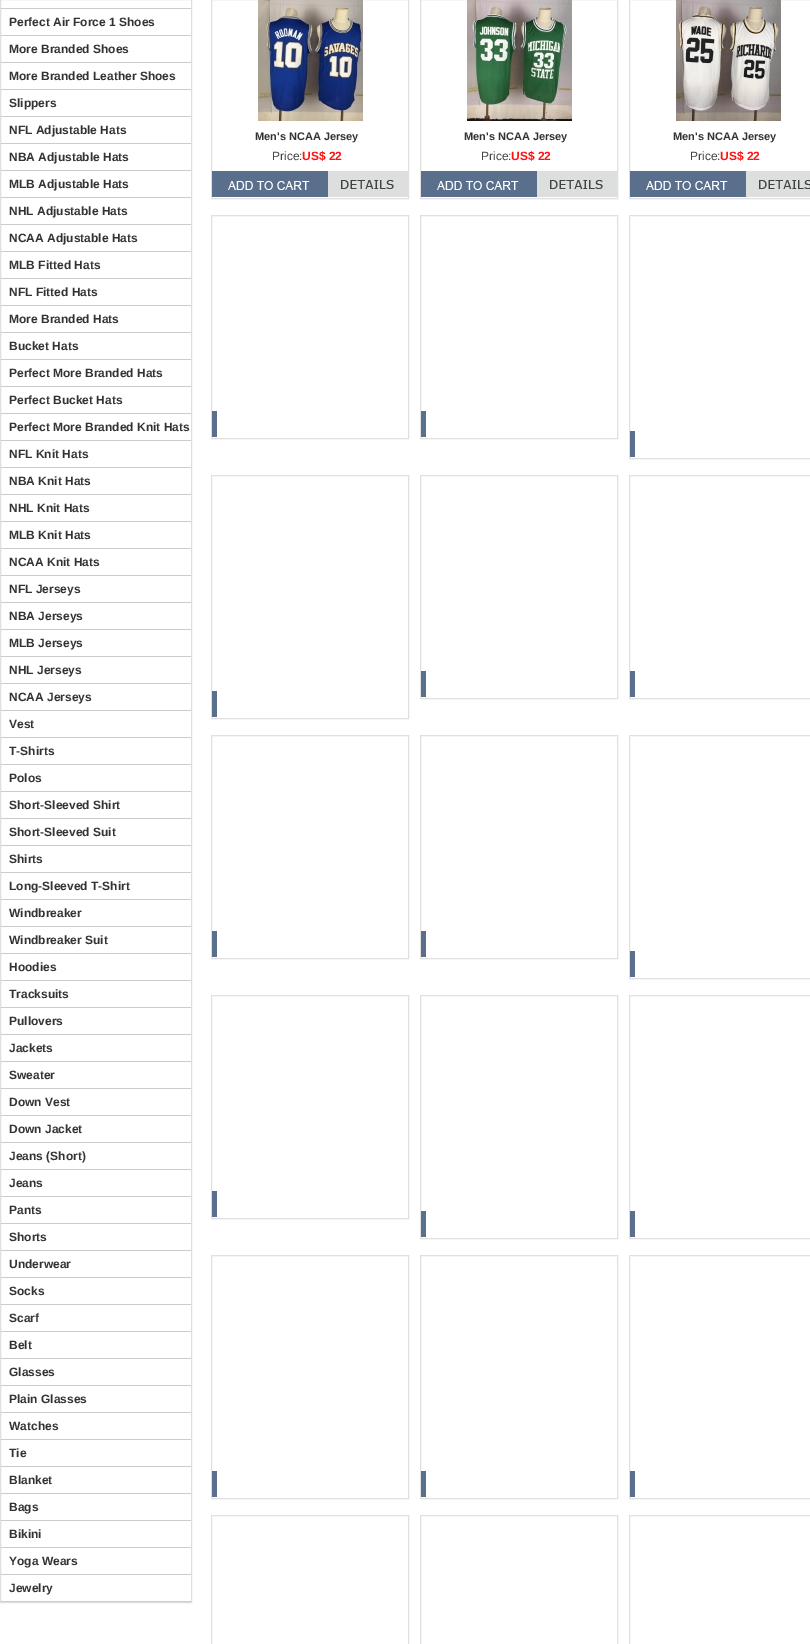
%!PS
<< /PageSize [810 1644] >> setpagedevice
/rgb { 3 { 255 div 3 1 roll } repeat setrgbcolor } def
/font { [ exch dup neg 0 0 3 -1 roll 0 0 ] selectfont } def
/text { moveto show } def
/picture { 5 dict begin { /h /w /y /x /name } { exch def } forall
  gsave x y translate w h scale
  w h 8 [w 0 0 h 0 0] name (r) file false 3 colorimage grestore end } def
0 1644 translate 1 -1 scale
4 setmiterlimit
255 255 255 rgb
0 0 810 1644 rectfill
224 223 223 rgb
0.5 -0.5 191 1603 rectstroke
204 204 204 rgb
1 8 190 1 rectfill
1 35 190 1 rectfill
1 62 190 1 rectfill
1 89 190 1 rectfill
1 116 190 1 rectfill
1 143 190 1 rectfill
1 170 190 1 rectfill
1 197 190 1 rectfill
1 224 190 1 rectfill
1 251 190 1 rectfill
1 278 190 1 rectfill
1 305 190 1 rectfill
1 332 190 1 rectfill
1 359 190 1 rectfill
1 386 190 1 rectfill
1 413 190 1 rectfill
1 440 190 1 rectfill
1 467 190 1 rectfill
1 494 190 1 rectfill
1 521 190 1 rectfill
1 548 190 1 rectfill
1 575 190 1 rectfill
1 602 190 1 rectfill
1 629 190 1 rectfill
1 656 190 1 rectfill
1 683 190 1 rectfill
1 710 190 1 rectfill
1 737 190 1 rectfill
1 764 190 1 rectfill
1 791 190 1 rectfill
1 818 190 1 rectfill
1 845 190 1 rectfill
1 872 190 1 rectfill
1 899 190 1 rectfill
1 926 190 1 rectfill
1 953 190 1 rectfill
1 980 190 1 rectfill
1 1007 190 1 rectfill
1 1034 190 1 rectfill
1 1061 190 1 rectfill
1 1088 190 1 rectfill
1 1115 190 1 rectfill
1 1142 190 1 rectfill
1 1169 190 1 rectfill
1 1196 190 1 rectfill
1 1223 190 1 rectfill
1 1250 190 1 rectfill
1 1277 190 1 rectfill
1 1304 190 1 rectfill
1 1331 190 1 rectfill
1 1358 190 1 rectfill
1 1385 190 1 rectfill
1 1412 190 1 rectfill
1 1439 190 1 rectfill
1 1466 190 1 rectfill
1 1493 190 1 rectfill
1 1520 190 1 rectfill
1 1547 190 1 rectfill
1 1574 190 1 rectfill
1 1601 190 1 rectfill
227 223 223 rgb
211.5 -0.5 197 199 rectstroke
(img_01.rgb) 258 0 105 121 picture
(img_02.rgb) 212 171 116 26 picture
(img_03.rgb) 328 171 80 26 picture
420.5 -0.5 197 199 rectstroke
(img_04.rgb) 467 0 105 121 picture
(img_02.rgb) 421 171 116 26 picture
(img_03.rgb) 537 171 80 26 picture
629.5 -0.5 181 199 rectstroke
(img_05.rgb) 676 0 105 121 picture
(img_02.rgb) 630 171 116 26 picture
(img_06.rgb) 746 171 64 26 picture
211.5 215.5 197 223 rectstroke
(img_07.rgb) 212 411 5 26 picture
420.5 215.5 197 223 rectstroke
(img_07.rgb) 421 411 5 26 picture
629.5 215.5 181 243 rectstroke
(img_07.rgb) 630 431 5 26 picture
211.5 475.5 197 243 rectstroke
(img_07.rgb) 212 691 5 26 picture
420.5 475.5 197 223 rectstroke
(img_07.rgb) 421 671 5 26 picture
629.5 475.5 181 223 rectstroke
(img_07.rgb) 630 671 5 26 picture
211.5 735.5 197 223 rectstroke
(img_07.rgb) 212 931 5 26 picture
420.5 735.5 197 223 rectstroke
(img_07.rgb) 421 931 5 26 picture
629.5 735.5 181 243 rectstroke
(img_07.rgb) 630 951 5 26 picture
211.5 995.5 197 223 rectstroke
(img_07.rgb) 212 1191 5 26 picture
420.5 995.5 197 243 rectstroke
(img_07.rgb) 421 1211 5 26 picture
629.5 995.5 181 243 rectstroke
(img_07.rgb) 630 1211 5 26 picture
211.5 1255.5 197 243 rectstroke
(img_07.rgb) 212 1471 5 26 picture
420.5 1255.5 197 243 rectstroke
(img_07.rgb) 421 1471 5 26 picture
629.5 1255.5 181 243 rectstroke
(img_07.rgb) 630 1471 5 26 picture
211.5 1515.5 197 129 rectstroke
420.5 1515.5 197 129 rectstroke
629.5 1515.5 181 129 rectstroke
/LiberationSans-Bold 12 font
51 51 51 rgb
(Perfect Air Force 1 Shoes) 9 26 text
(More Branded Shoes) 9 53 text
(More Branded Leather Shoes) 9 80 text
(Slippers) 9 107 text
(NFL Adjustable Hats) 9 134 text
(NBA Adjustable Hats) 9 161 text
(MLB Adjustable Hats) 9 188 text
(NHL Adjustable Hats) 9 215 text
(NCAA Adjustable Hats) 9 242 text
(MLB Fitted Hats) 9 269 text
(NFL Fitted Hats) 9 296 text
(More Branded Hats) 9 323 text
(Bucket Hats) 9 350 text
(Perfect More Branded Hats) 9 377 text
(Perfect Bucket Hats) 9 404 text
(Perfect More Branded Knit Hats) 9 431 text
(NFL Knit Hats) 9 458 text
(NBA Knit Hats) 9 485 text
(NHL Knit Hats) 9 512 text
(MLB Knit Hats) 9 539 text
(NCAA Knit Hats) 9 566 text
(NFL Jerseys) 9 593 text
(NBA Jerseys) 9 620 text
(MLB Jerseys) 9 647 text
(NHL Jerseys) 9 674 text
(NCAA Jerseys) 9 701 text
(Vest) 9 728 text
(T-Shirts) 9 755 text
(Polos) 9 782 text
(Short-Sleeved Shirt) 9 809 text
(Short-Sleeved Suit) 9 836 text
(Shirts) 9 863 text
(Long-Sleeved T-Shirt) 9 890 text
(Windbreaker) 9 917 text
(Windbreaker Suit) 9 944 text
(Hoodies) 9 971 text
(Tracksuits) 9 998 text
(Pullovers) 9 1025 text
(Jackets) 9 1052 text
(Sweater) 9 1079 text
(Down Vest) 9 1106 text
(Down Jacket) 9 1133 text
(Jeans \(Short\)) 9 1160 text
(Jeans) 9 1187 text
(Pants) 9 1214 text
(Shorts) 9 1241 text
(Underwear) 9 1268 text
(Socks) 9 1295 text
(Scarf) 9 1322 text
(Belt) 9 1349 text
(Glasses) 9 1376 text
(Plain Glasses) 9 1403 text
(Watches) 9 1430 text
(Tie) 9 1457 text
(Blanket) 9 1484 text
(Bags) 9 1511 text
(Bikini) 9 1538 text
(Yoga Wears) 9 1565 text
(Jewelry) 9 1592 text
/LiberationSans-Bold 11 font
(Men's NCAA Jersey) 255 140 text
/LiberationSans-Regular 12 font
67 67 67 rgb
(Price:) 272 160 text
/LiberationSans-Bold 12 font
255 17 17 rgb
(US$ 22) 302 160 text
/LiberationSans-Bold 11 font
51 51 51 rgb
(Men's NCAA Jersey) 464 140 text
/LiberationSans-Regular 12 font
67 67 67 rgb
(Price:) 481 160 text
/LiberationSans-Bold 12 font
255 17 17 rgb
(US$ 22) 511 160 text
/LiberationSans-Bold 11 font
51 51 51 rgb
(Men's NCAA Jersey) 673 140 text
/LiberationSans-Regular 12 font
67 67 67 rgb
(Price:) 690 160 text
/LiberationSans-Bold 12 font
255 17 17 rgb
(US$ 22) 720 160 text
showpage
